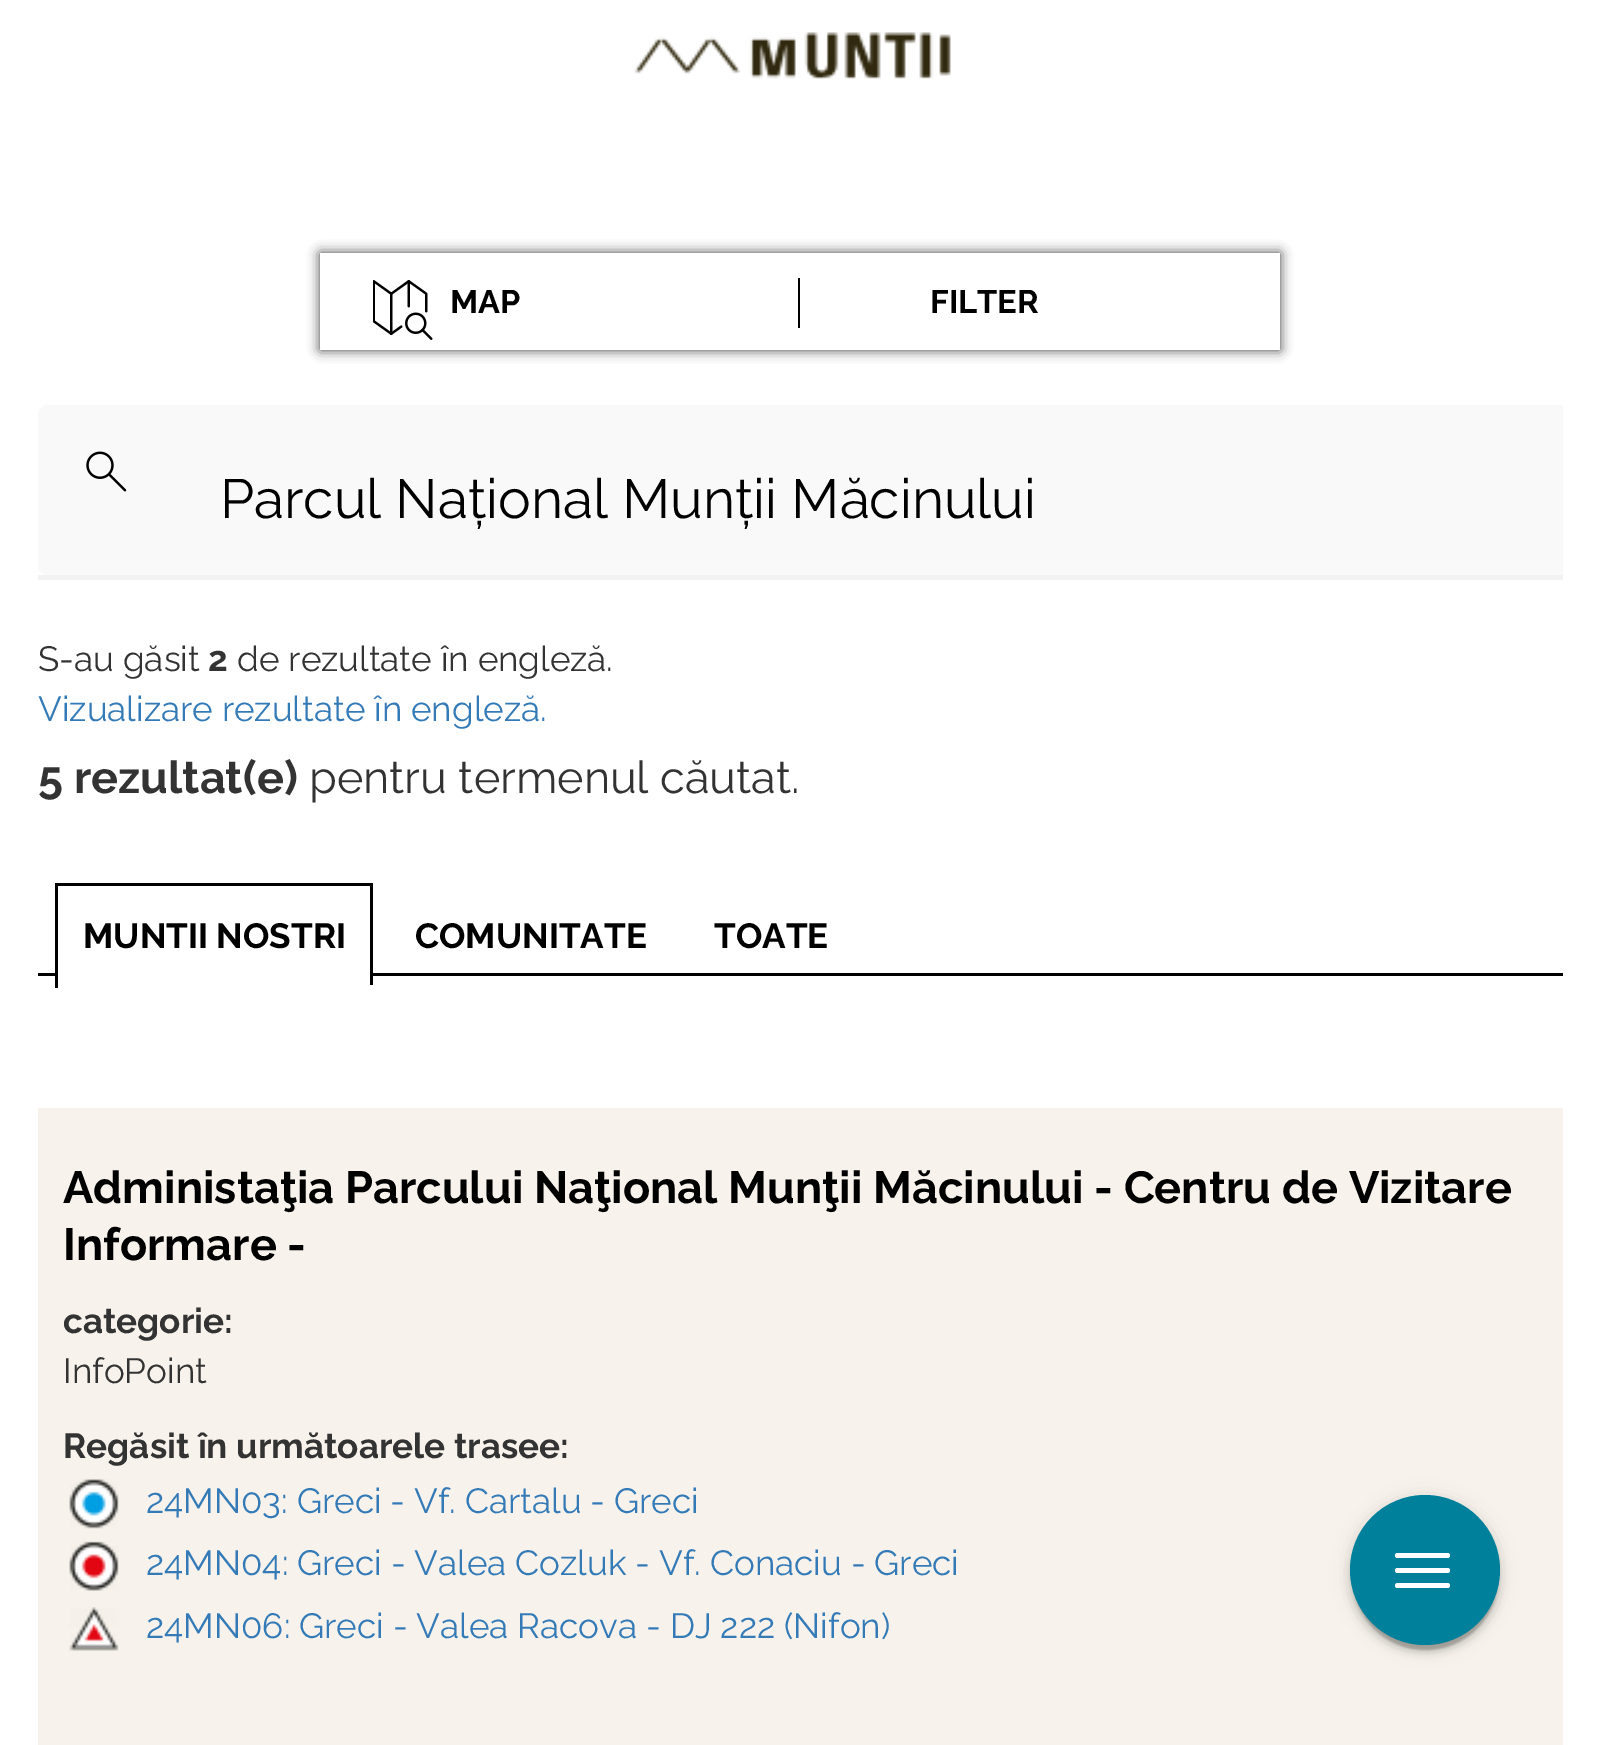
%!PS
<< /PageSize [1598 1745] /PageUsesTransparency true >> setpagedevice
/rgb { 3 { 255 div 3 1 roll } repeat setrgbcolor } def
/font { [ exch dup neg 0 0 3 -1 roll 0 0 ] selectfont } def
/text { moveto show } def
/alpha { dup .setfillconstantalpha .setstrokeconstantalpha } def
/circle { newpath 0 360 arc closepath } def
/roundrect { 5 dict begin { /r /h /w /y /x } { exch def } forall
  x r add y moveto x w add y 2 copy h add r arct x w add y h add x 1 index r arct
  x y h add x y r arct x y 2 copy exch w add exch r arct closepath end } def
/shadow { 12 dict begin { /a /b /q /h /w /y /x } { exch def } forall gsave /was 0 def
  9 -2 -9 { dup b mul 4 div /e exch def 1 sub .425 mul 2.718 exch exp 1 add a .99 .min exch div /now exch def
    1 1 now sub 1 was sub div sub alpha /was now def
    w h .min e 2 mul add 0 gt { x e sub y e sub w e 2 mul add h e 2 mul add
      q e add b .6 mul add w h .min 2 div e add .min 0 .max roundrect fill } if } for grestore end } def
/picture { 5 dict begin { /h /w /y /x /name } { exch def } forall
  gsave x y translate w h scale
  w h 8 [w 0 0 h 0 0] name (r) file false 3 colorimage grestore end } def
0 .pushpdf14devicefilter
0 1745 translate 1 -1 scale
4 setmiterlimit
255 255 255 rgb
0 0 1598 1745 rectfill
(img_01.rgb) 634 32 317 48 picture
gsave
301 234 moveto 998 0 rlineto 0 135 rlineto -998 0 rlineto closepath 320 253 moveto 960 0 rlineto 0 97 rlineto -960 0 rlineto closepath eoclip newpath
0 0 0 rgb
320 253 960 97 0 6 0.75 shadow
grestore
(img_02.rgb) 373 280 60 60 picture
0 0 0 rgb
798 278 2 50 rectfill
242 242 242 rgb
38 575 1525 5 rectfill
249 249 249 rgb
48 405 moveto 1515 0 rlineto 0 170 rlineto -1515 0 rlineto -5.5 0 -10 -4.5 -10 -10 rcurveto 0 -150 rlineto 0 -5.5 4.5 -10 10 -10 rcurveto closepath fill
(img_03.rgb) 86 451 41 41 picture
0 0 0 rgb
38 973 1525 3 rectfill
255 255 255 rgb
58 973 312 3 rectfill
0 0 0 rgb
55 883 318 3 rectfill
370 883 3 105 rectfill
255 255 255 rgb
370 985 3 3 rectfill
0 0 0 rgb
55 883 3 105 rectfill
247 243 236 rgb
38 1108 1525 637 rectfill
(img_04.rgb) 69 1479 50 50 picture
(img_05.rgb) 69 1541 50 50 picture
(img_06.rgb) 69 1607 50 44 picture
0 0 0 rgb
1353 1505 145 145 72.5 1 0.2 shadow
1350 1498 150 150 75 9 0.12 shadow
1350 1503 150 150 75 4 0.14 shadow
0 128 154 rgb
1425 1570 75 circle fill
255 255 255 rgb
1395 1553 55 5 2.5 roundrect fill
1395 1568 55 5 2.5 roundrect fill
1395 1583 55 5 2.5 roundrect fill
/Raleway-Bold 32.5 font
0 0 0 rgb
(MAP) 450 313 text
(FILTER) 930 313 text
/Raleway-Regular 55 font
(Parcul Național Munții Măcinului) 220 518 text
/Raleway-Regular 35 font
51 51 51 rgb
(S-au găsit) 38 671 text
/Raleway-Bold 35 font
(2) 208 671 text
/Raleway-Regular 35 font
(de rezultate în engleză.) 237 671 text
51 122 183 rgb
(Vizualizare rezultate în engleză.) 38 721 text
/Raleway-Bold 45 font
51 51 51 rgb
(5 rezultat\(e\)) 38 793 text
/Raleway-Regular 45 font
(pentru termenul căutat.) 309 793 text
/Raleway-Bold 35 font
0 0 0 rgb
(MUNTII NOSTRI) 83 948 text
(COMUNITATE) 415 948 text
(TOATE) 714 948 text
/Raleway-Bold 45 font
(Administaţia Parcului Naţional Munţii Măcinului - Centru de Vizitare) 63 1203 text
(Informare -) 63 1260 text
/Raleway-Bold 35 font
51 51 51 rgb
(categorie:) 63 1333 text
/Raleway-Regular 35 font
(InfoPoint) 63 1383 text
/Raleway-Bold 35 font
(Regăsit în următoarele trasee:) 63 1458 text
/Raleway-Regular 35 font
51 122 183 rgb
(24MN03: Greci - Vf. Cartalu - Greci) 146 1513 text
(24MN04: Greci - Valea Cozluk - Vf. Conaciu - Greci) 146 1575 text
(24MN06: Greci - Valea Racova - DJ 222 \(Nifon\)) 146 1638 text
.poppdf14devicefilter showpage
